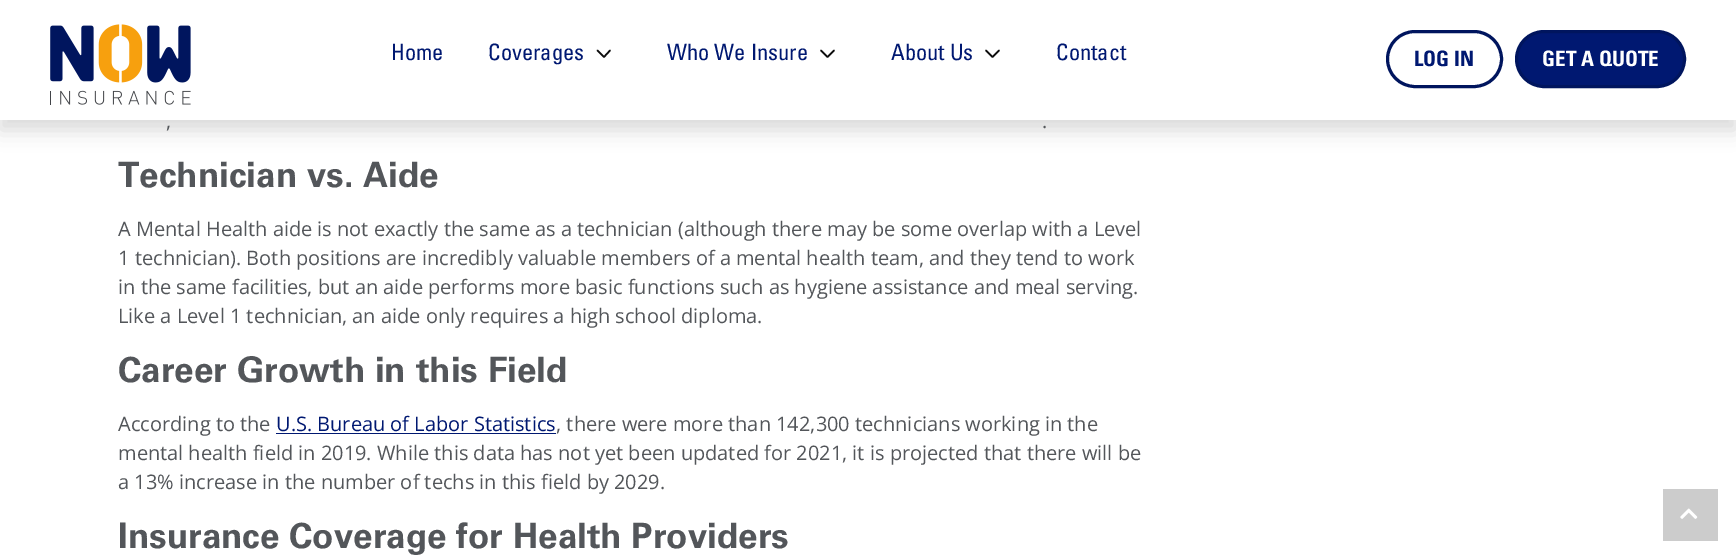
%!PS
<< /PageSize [1736 560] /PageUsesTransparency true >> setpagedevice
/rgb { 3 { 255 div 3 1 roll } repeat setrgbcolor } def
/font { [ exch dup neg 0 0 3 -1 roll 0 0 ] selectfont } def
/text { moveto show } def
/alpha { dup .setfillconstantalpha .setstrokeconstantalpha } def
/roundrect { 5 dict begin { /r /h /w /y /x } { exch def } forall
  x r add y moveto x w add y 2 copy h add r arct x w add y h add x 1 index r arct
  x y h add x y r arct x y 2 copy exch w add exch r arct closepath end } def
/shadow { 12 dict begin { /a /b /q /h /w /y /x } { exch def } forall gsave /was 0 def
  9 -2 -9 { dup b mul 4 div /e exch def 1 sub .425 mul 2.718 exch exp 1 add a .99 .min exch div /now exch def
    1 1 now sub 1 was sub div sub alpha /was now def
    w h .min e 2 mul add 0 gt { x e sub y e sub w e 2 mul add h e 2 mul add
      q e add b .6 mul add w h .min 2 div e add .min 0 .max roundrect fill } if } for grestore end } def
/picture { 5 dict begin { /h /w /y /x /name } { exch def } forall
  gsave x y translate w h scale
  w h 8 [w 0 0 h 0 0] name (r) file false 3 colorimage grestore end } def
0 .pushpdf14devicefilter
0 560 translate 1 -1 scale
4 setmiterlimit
255 255 255 rgb
0 0 1736 560 rectfill
0 0 0 rgb
0 10 1736 120 0 10 0.15 shadow
255 255 255 rgb
0 0 1736 120 rectfill
(img_01.rgb) 50 24 141 81 picture
13 13 13 rgb
1.6 setlinewidth
1 setlinecap
1 setlinejoin
597.5 50.5 moveto 6.5 6.5 rlineto 6 -6.5 rlineto stroke
821 50.5 moveto 6.5 6.5 rlineto 6.5 -6.5 rlineto stroke
986 50.5 moveto 6.5 6.5 rlineto 6.5 -6.5 rlineto stroke
0 21 94 rgb
3 setlinewidth
0 setlinecap
0 setlinejoin
1387.5 31.5 114 55 27.5 roundrect stroke
0 24 113 rgb
1516.5 31.5 168 55 27.5 roundrect gsave fill grestore
0 21 94 rgb
stroke
0 24 113 rgb
276 433 280 1 rectfill
204 204 204 rgb
1663 489 55 52 rectfill
(img_02.rgb) 1680 508 18 11 picture
/Univers-Regular 22.5 font
0 24 113 rgb
(Home) 391 60 text
(Coverages) 488 60 text
(Who We Insure) 667 60 text
(About Us) 891 60 text
(Contact) 1056 60 text
/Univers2-Bold 21.25 font
(LOG IN) 1414 66 text
255 255 255 rgb
(GET A QUOTE) 1542 66 text
/OpenSans-Regular 20 font
83 86 90 rgb
(,) 166 128 text
(.) 1042 128 text
/Univers-Bold 35 font
(Technician vs. Aide) 118 187 text
/OpenSans-Regular 20 font
(A Mental Health aide is not exactly the same as a technician \(although there may be some overlap with a Level) 118 236 text
(1 technician\). Both positions are incredibly valuable members of a mental health team, and they tend to work) 118 265 text
(in the same facilities, but an aide performs more basic functions such as hygiene assistance and meal serving.) 118 294 text
(Like a Level 1 technician, an aide only requires a high school diploma.) 118 323 text
/Univers-Bold 35 font
(Career Growth in this Field) 118 382 text
/OpenSans-Regular 20 font
(According to the) 118 431 text
0 24 113 rgb
(U.S. Bureau of Labor Statistics) 276 431 text
83 86 90 rgb
(, there were more than 142,300 technicians working in the) 556 431 text
(mental health field in 2019. While this data has not yet been updated for 2021, it is projected that there will be) 118 460 text
(a 13% increase in the number of techs in this field by 2029.) 118 489 text
/Univers-Bold 35 font
(Insurance Coverage for Health Providers) 118 548 text
.poppdf14devicefilter showpage
